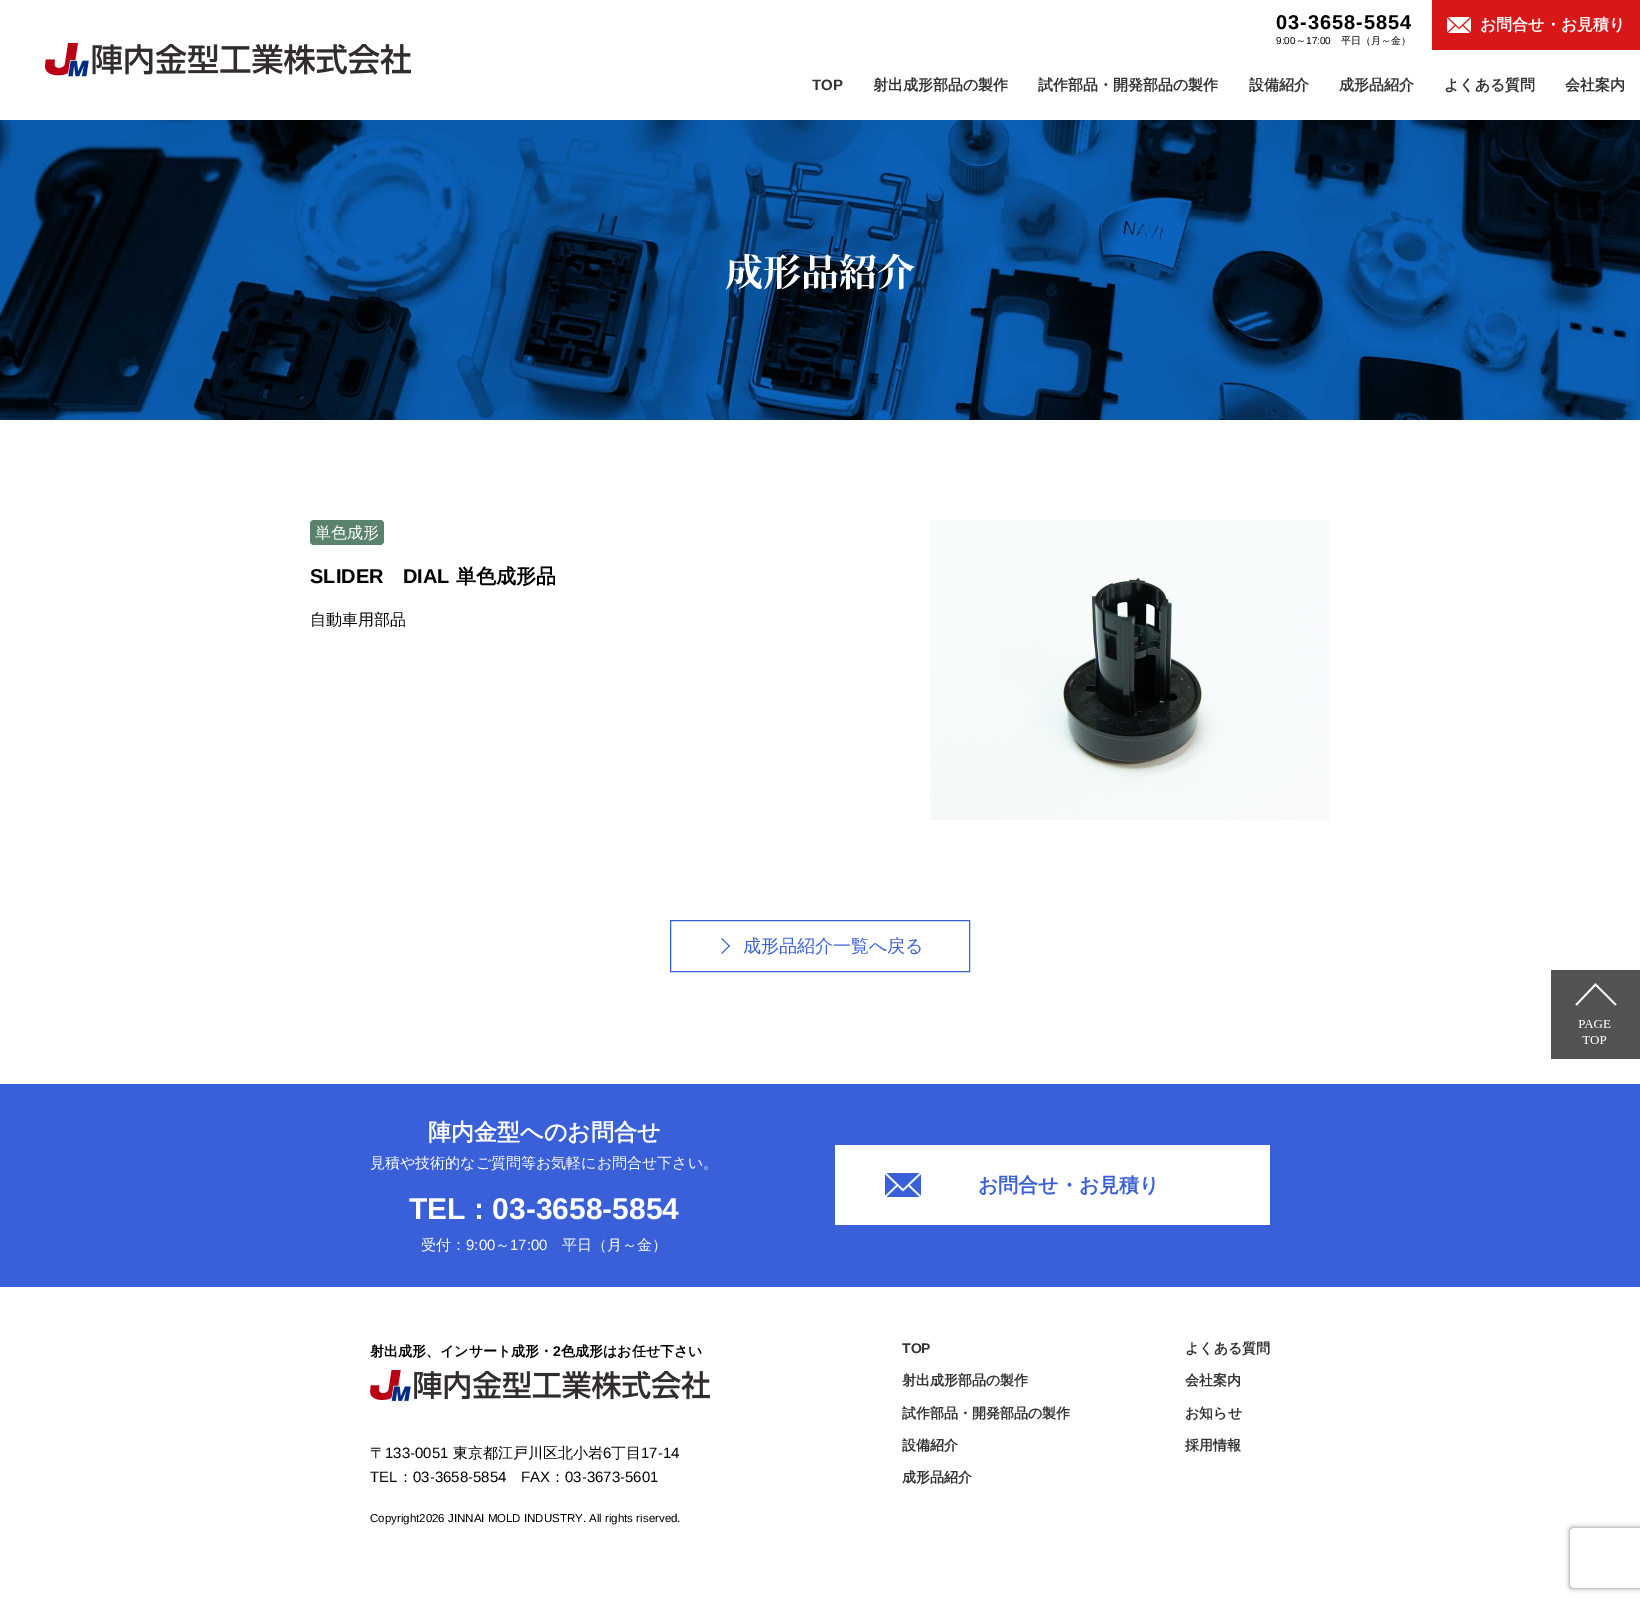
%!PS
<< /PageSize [1640 1602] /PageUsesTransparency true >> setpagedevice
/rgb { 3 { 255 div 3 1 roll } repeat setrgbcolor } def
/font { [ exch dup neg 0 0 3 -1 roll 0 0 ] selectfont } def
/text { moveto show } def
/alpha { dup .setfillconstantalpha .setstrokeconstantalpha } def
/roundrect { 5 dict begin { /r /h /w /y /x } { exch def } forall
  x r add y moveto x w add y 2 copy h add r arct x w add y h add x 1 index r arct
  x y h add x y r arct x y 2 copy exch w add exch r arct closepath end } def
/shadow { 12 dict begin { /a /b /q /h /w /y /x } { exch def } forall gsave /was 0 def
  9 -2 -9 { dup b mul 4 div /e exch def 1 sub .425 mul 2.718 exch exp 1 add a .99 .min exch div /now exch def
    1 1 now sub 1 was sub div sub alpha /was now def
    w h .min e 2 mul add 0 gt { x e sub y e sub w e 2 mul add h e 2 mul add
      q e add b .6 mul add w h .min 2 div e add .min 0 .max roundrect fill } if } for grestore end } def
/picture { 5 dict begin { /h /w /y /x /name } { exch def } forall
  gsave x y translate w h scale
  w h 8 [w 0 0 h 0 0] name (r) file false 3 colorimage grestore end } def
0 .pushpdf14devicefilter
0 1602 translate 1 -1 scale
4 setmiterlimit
255 255 255 rgb
0 0 1640 1602 rectfill
(img_01.rgb) 45 43 366 34 picture
215 23 24 rgb
1432 0 208 50 rectfill
(img_02.rgb) 1447 17 24 16 picture
(img_03.rgb) 0 120 1640 300 picture
89 131 108 rgb
310 520 74 25 4 roundrect fill
(img_04.rgb) 930 520 400 300 picture
57 96 217 rgb
670.5 920.5 299 51 rectstroke
722 938 moveto 8 8 rlineto -1 0.5 rlineto -7.5 -7.5 rlineto closepath fill
729 945.5 moveto 1 0.5 rlineto -8 8 rlineto -0.5 -1 rlineto closepath fill
0 1084 1640 203 rectfill
(img_05.rgb) 1551 970 89 89 picture
255 255 255 rgb
835 1145 435 80 rectfill
(img_06.rgb) 885 1173 36 24 picture
(img_07.rgb) 370 1370 340 31 picture
gsave
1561 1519 moveto 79 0 rlineto 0 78 rlineto -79 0 rlineto closepath 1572 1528 moveto 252 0 rlineto 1 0 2 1 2 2 rcurveto 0 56 rlineto 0 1 -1 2 -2 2 rcurveto -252 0 rlineto -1 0 -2 -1 -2 -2 rcurveto 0 -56 rlineto 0 -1 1 -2 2 -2 rcurveto closepath eoclip newpath
128 128 128 rgb
1570 1528 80 60 2 2.5 1 shadow
grestore
/LiberationSans-Bold 20 font
0 0 0 rgb
1276 29 moveto 1 0 (03-3658-5854) ashow
/LiberationSans-Regular 10 font
(9:00) 1276 44 text
/WenQuanYiZenHei-Medium 10 font
(～) 1296 44 text
/LiberationSans-Regular 10 font
(17:00) 1306 44 text
/WenQuanYiZenHei-Medium 10 font
(平日（月～金）) 1341 44 text
/WenQuanYiZenHei-Bold 16 font
255 255 255 rgb
(お問合せ・お見積り) 1480 30 text
/LiberationSans-Bold 15 font
51 51 51 rgb
(TOP) 812 90 text
/WenQuanYiZenHei-Bold 15 font
(射出成形部品の製作) 873 90 text
(試作部品・開発部品の製作) 1038 90 text
(設備紹介) 1249 90 text
(成形品紹介) 1339 90 text
(よくある質問) 1444 90 text
(会社案内) 1565 90 text
/NotoSerifJP-Bold 38 font
255 255 255 rgb
(成形品紹介) 725 286 text
/WenQuanYiZenHei-Medium 16 font
(単色成形) 315 538 text
/LiberationSans-Bold 20 font
0 0 0 rgb
(SLIDER) 310 583 text
(DIAL) 403 583 text
/WenQuanYiZenHei-Bold 20 font
(単色成形品) 456 583 text
/WenQuanYiZenHei-Medium 16 font
(自動車用部品) 310 625 text
/WenQuanYiZenHei-Medium 18 font
57 96 217 rgb
(成形品紹介一覧へ戻る) 743 952 text
/WenQuanYiZenHei-Bold 23 font
255 255 255 rgb
(陣内金型へのお問合せ) 428 1140 text
/WenQuanYiZenHei-Medium 15 font
(見積や技術的なご質問等お気軽にお問合せ下さい。) 370 1168 text
/LiberationSans-Bold 30 font
(TEL : 03-3658-5854) 409 1219 text
/WenQuanYiZenHei-Medium 15 font
(受付：) 421 1250 text
/LiberationSans-Regular 15 font
(9:00) 466 1250 text
/WenQuanYiZenHei-Medium 15 font
(～) 495 1250 text
/LiberationSans-Regular 15 font
(17:00) 510 1250 text
/WenQuanYiZenHei-Medium 15 font
(平日（月～金）) 562 1250 text
/WenQuanYiZenHei-Bold 20 font
57 96 217 rgb
(お問合せ・お見積り) 978 1192 text
/WenQuanYiZenHei-Bold 14 font
0 0 0 rgb
(射出成形、インサート成形・) 370 1356 text
/LiberationSans-Bold 14 font
(2) 553 1356 text
/WenQuanYiZenHei-Bold 14 font
(色成形はお任せ下さい) 561 1356 text
/WenQuanYiZenHei-Medium 15 font
(〒) 370 1458 text
/LiberationSans-Regular 15 font
(133-0051) 385 1458 text
/WenQuanYiZenHei-Medium 15 font
(東京都江戸川区北小岩) 453 1458 text
/LiberationSans-Regular 15 font
(6) 603 1458 text
/WenQuanYiZenHei-Medium 15 font
(丁目) 611 1458 text
/LiberationSans-Regular 15 font
(17-14) 641 1458 text
(TEL) 370 1482 text
/WenQuanYiZenHei-Medium 15 font
(：) 398 1482 text
/LiberationSans-Regular 15 font
(03-3658-5854) 413 1482 text
(FAX) 521 1482 text
/WenQuanYiZenHei-Medium 15 font
(：) 550 1482 text
/LiberationSans-Regular 15 font
(03-3673-5601) 565 1482 text
/LiberationSans-Regular 11.5 font
(Copyright2026 JINNAI MOLD INDUSTRY. All rights riserved.) 370 1522 text
/LiberationSans-Bold 14 font
51 51 51 rgb
(TOP) 902 1353 text
/WenQuanYiZenHei-Bold 14 font
(射出成形部品の製作) 902 1385 text
(試作部品・開発部品の製作) 902 1418 text
(設備紹介) 902 1450 text
(成形品紹介) 902 1482 text
(よくある質問) 1185 1353 text
(会社案内) 1185 1385 text
(お知らせ) 1185 1418 text
(採用情報) 1185 1450 text
.poppdf14devicefilter showpage
